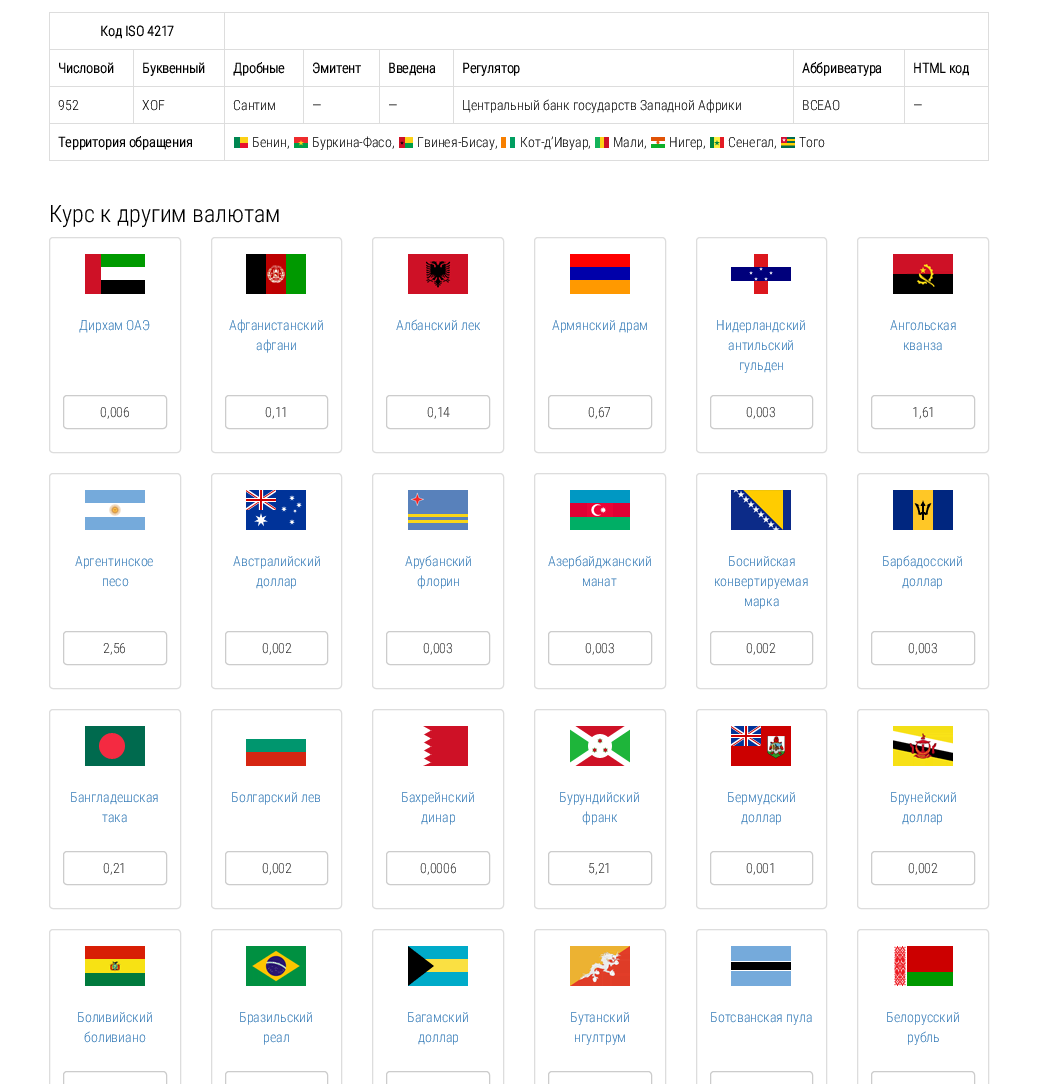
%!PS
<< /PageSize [1038 1084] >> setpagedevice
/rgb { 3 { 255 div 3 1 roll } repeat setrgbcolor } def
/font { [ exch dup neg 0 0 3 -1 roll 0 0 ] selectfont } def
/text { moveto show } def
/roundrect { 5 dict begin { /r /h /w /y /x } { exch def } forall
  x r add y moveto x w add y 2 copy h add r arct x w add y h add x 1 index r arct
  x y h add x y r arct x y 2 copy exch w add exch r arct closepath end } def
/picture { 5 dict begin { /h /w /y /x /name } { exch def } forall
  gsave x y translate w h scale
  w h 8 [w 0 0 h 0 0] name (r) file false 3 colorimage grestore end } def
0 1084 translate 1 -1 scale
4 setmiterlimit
255 255 255 rgb
0 0 1038 1084 rectfill
221 221 221 rgb
49 12 940 1 rectfill
988 12 1 149 rectfill
49 160 940 1 rectfill
49 12 1 149 rectfill
904 49 85 1 rectfill
904 86 85 1 rectfill
224 123 765 1 rectfill
904 86 1 38 rectfill
793 86 112 1 rectfill
904 49 1 38 rectfill
793 49 112 1 rectfill
793 86 1 38 rectfill
453 86 341 1 rectfill
793 49 1 38 rectfill
453 49 341 1 rectfill
453 86 1 38 rectfill
379 86 75 1 rectfill
453 49 1 38 rectfill
379 49 75 1 rectfill
379 86 1 38 rectfill
303 86 77 1 rectfill
379 49 1 38 rectfill
303 49 77 1 rectfill
303 86 1 38 rectfill
224 86 80 1 rectfill
303 49 1 38 rectfill
224 49 80 1 rectfill
224 123 1 38 rectfill
49 123 176 1 rectfill
224 86 1 38 rectfill
133 86 92 1 rectfill
224 49 1 38 rectfill
133 49 92 1 rectfill
224 12 1 38 rectfill
133 86 1 38 rectfill
49 86 85 1 rectfill
133 49 1 38 rectfill
49 49 85 1 rectfill
(img_01.rgb) 234 137 14 11 picture
(img_02.rgb) 294 137 14 11 picture
(img_03.rgb) 399 137 14 11 picture
(img_04.rgb) 501 137 14 11 picture
(img_05.rgb) 595 137 14 11 picture
(img_06.rgb) 651 137 14 11 picture
(img_07.rgb) 710 137 14 11 picture
(img_08.rgb) 781 137 14 11 picture
49.5 237.5 131 215 3.5 roundrect stroke
(img_09.rgb) 85 254 60 40 picture
204 204 204 rgb
63.5 395.5 103 33 3.5 roundrect stroke
221 221 221 rgb
211.5 237.5 130 215 3.5 roundrect stroke
(img_10.rgb) 246 254 60 40 picture
204 204 204 rgb
225.5 395.5 102 33 3.5 roundrect stroke
221 221 221 rgb
372.5 237.5 131 215 3.5 roundrect stroke
(img_11.rgb) 408 254 60 40 picture
204 204 204 rgb
386.5 395.5 103 33 3.5 roundrect stroke
221 221 221 rgb
534.5 237.5 131 215 3.5 roundrect stroke
(img_12.rgb) 570 254 60 40 picture
204 204 204 rgb
548.5 395.5 103 33 3.5 roundrect stroke
221 221 221 rgb
696.5 237.5 130 215 3.5 roundrect stroke
(img_13.rgb) 731 254 60 40 picture
204 204 204 rgb
710.5 395.5 102 33 3.5 roundrect stroke
221 221 221 rgb
857.5 237.5 131 215 3.5 roundrect stroke
(img_14.rgb) 893 254 60 40 picture
204 204 204 rgb
871.5 395.5 103 33 3.5 roundrect stroke
221 221 221 rgb
49.5 473.5 131 215 3.5 roundrect stroke
(img_15.rgb) 85 490 60 40 picture
204 204 204 rgb
63.5 631.5 103 33 3.5 roundrect stroke
221 221 221 rgb
211.5 473.5 130 215 3.5 roundrect stroke
(img_16.rgb) 246 490 60 40 picture
204 204 204 rgb
225.5 631.5 102 33 3.5 roundrect stroke
221 221 221 rgb
372.5 473.5 131 215 3.5 roundrect stroke
(img_17.rgb) 408 490 60 40 picture
204 204 204 rgb
386.5 631.5 103 33 3.5 roundrect stroke
221 221 221 rgb
534.5 473.5 131 215 3.5 roundrect stroke
(img_18.rgb) 570 490 60 40 picture
204 204 204 rgb
548.5 631.5 103 33 3.5 roundrect stroke
221 221 221 rgb
696.5 473.5 130 215 3.5 roundrect stroke
(img_19.rgb) 731 490 60 40 picture
204 204 204 rgb
710.5 631.5 102 33 3.5 roundrect stroke
221 221 221 rgb
857.5 473.5 131 215 3.5 roundrect stroke
(img_20.rgb) 893 490 60 40 picture
204 204 204 rgb
871.5 631.5 103 33 3.5 roundrect stroke
221 221 221 rgb
49.5 709.5 131 199 3.5 roundrect stroke
(img_21.rgb) 85 726 60 40 picture
204 204 204 rgb
63.5 851.5 103 33 3.5 roundrect stroke
221 221 221 rgb
211.5 709.5 130 199 3.5 roundrect stroke
(img_22.rgb) 246 739 60 27 picture
204 204 204 rgb
225.5 851.5 102 33 3.5 roundrect stroke
221 221 221 rgb
372.5 709.5 131 199 3.5 roundrect stroke
(img_23.rgb) 423 726 45 40 picture
204 204 204 rgb
386.5 851.5 103 33 3.5 roundrect stroke
221 221 221 rgb
534.5 709.5 131 199 3.5 roundrect stroke
(img_24.rgb) 570 726 60 40 picture
204 204 204 rgb
548.5 851.5 103 33 3.5 roundrect stroke
221 221 221 rgb
696.5 709.5 130 199 3.5 roundrect stroke
(img_25.rgb) 731 726 60 40 picture
204 204 204 rgb
710.5 851.5 102 33 3.5 roundrect stroke
221 221 221 rgb
857.5 709.5 131 199 3.5 roundrect stroke
(img_26.rgb) 893 726 60 40 picture
204 204 204 rgb
871.5 851.5 103 33 3.5 roundrect stroke
221 221 221 rgb
49.5 929.5 131 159 3.5 roundrect stroke
(img_27.rgb) 85 946 60 40 picture
204 204 204 rgb
63.5 1071.5 103 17 3.5 roundrect stroke
221 221 221 rgb
211.5 929.5 130 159 3.5 roundrect stroke
(img_28.rgb) 246 946 60 40 picture
204 204 204 rgb
225.5 1071.5 102 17 3.5 roundrect stroke
221 221 221 rgb
372.5 929.5 131 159 3.5 roundrect stroke
(img_29.rgb) 408 946 60 40 picture
204 204 204 rgb
386.5 1071.5 103 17 3.5 roundrect stroke
221 221 221 rgb
534.5 929.5 131 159 3.5 roundrect stroke
(img_30.rgb) 570 946 60 40 picture
204 204 204 rgb
548.5 1071.5 103 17 3.5 roundrect stroke
221 221 221 rgb
696.5 929.5 130 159 3.5 roundrect stroke
(img_31.rgb) 731 946 60 40 picture
204 204 204 rgb
710.5 1071.5 102 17 3.5 roundrect stroke
221 221 221 rgb
857.5 929.5 131 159 3.5 roundrect stroke
(img_32.rgb) 894 946 59 40 picture
204 204 204 rgb
871.5 1071.5 103 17 3.5 roundrect stroke
/RobotoCondensed-Bold 14 font
0 0 0 rgb
(Код ISO 4217) 100 36 text
(Числовой) 58 73 text
(Буквенный) 142 73 text
(Дробные) 233 73 text
(Эмитент) 312 73 text
(Введена) 388 73 text
(Регулятор) 462 73 text
(Аббривеатура) 802 73 text
(HTML код) 913 73 text
/RobotoCondensed-Light 14 font
(952) 58 110 text
(XOF) 142 110 text
(Сантим) 233 110 text
(—) 312 110 text
(—) 388 110 text
(Центральный банк государств Западной Африки) 462 110 text
(BCEAO) 802 110 text
(—) 913 110 text
/RobotoCondensed-Bold 14 font
(Территория обращения) 58 147 text
/RobotoCondensed-Light 14 font
(Бенин,) 252 147 text
(Буркина-Фасо,) 312 147 text
(Гвинея-Бисау,) 417 147 text
(Кот-д’Ивуар,) 520 147 text
(Мали,) 613 147 text
(Нигер,) 669 147 text
(Сенегал,) 728 147 text
(Того) 799 147 text
/RobotoCondensed-Light 24 font
(Курс к другим валютам) 49 222 text
/RobotoCondensed-Light 14 font
51 122 183 rgb
(Дирхам ОАЭ) 79 330 text
51 51 51 rgb
(0,006) 100 417 text
51 122 183 rgb
(Афганистанский) 229 330 text
(афгани) 256 350 text
51 51 51 rgb
(0,11) 265 417 text
51 122 183 rgb
(Албанский лек) 396 330 text
51 51 51 rgb
(0,14) 427 417 text
51 122 183 rgb
(Армянский драм) 552 330 text
51 51 51 rgb
(0,67) 588 417 text
51 122 183 rgb
(Нидерландский) 716 330 text
(антильский) 728 350 text
(гульден) 739 370 text
51 51 51 rgb
(0,003) 746 417 text
51 122 183 rgb
(Ангольская) 890 330 text
(кванза) 903 350 text
51 51 51 rgb
(1,61) 912 417 text
51 122 183 rgb
(Аргентинское) 75 566 text
(песо) 102 586 text
51 51 51 rgb
(2,56) 103 653 text
51 122 183 rgb
(Австралийский) 233 566 text
(доллар) 256 586 text
51 51 51 rgb
(0,002) 262 653 text
51 122 183 rgb
(Арубанский) 405 566 text
(флорин) 417 586 text
51 51 51 rgb
(0,003) 423 653 text
51 122 183 rgb
(Азербайджанский) 548 566 text
(манат) 582 586 text
51 51 51 rgb
(0,003) 585 653 text
51 122 183 rgb
(Боснийская) 728 566 text
(конвертируемая) 714 586 text
(марка) 744 606 text
51 51 51 rgb
(0,002) 746 653 text
51 122 183 rgb
(Барбадосский) 882 566 text
(доллар) 902 586 text
51 51 51 rgb
(0,003) 908 653 text
51 122 183 rgb
(Бангладешская) 70 802 text
(така) 102 822 text
51 51 51 rgb
(0,21) 103 873 text
51 122 183 rgb
(Болгарский лев) 231 802 text
51 51 51 rgb
(0,002) 262 873 text
51 122 183 rgb
(Бахрейнский) 401 802 text
(динар) 421 822 text
51 51 51 rgb
(0,0006) 420 873 text
51 122 183 rgb
(Бурундийский) 559 802 text
(франк) 582 822 text
51 51 51 rgb
(5,21) 588 873 text
51 122 183 rgb
(Бермудский) 727 802 text
(доллар) 741 822 text
51 51 51 rgb
(0,001) 746 873 text
51 122 183 rgb
(Брунейский) 890 802 text
(доллар) 902 822 text
51 51 51 rgb
(0,002) 908 873 text
51 122 183 rgb
(Боливийский) 77 1022 text
(боливиано) 84 1042 text
(Бразильский) 239 1022 text
(реал) 263 1042 text
(Багамский) 407 1022 text
(доллар) 418 1042 text
(Бутанский) 570 1022 text
(нгултрум) 574 1042 text
(Ботсванская пула) 710 1022 text
(Белорусский) 886 1022 text
(рубль) 907 1042 text
showpage
